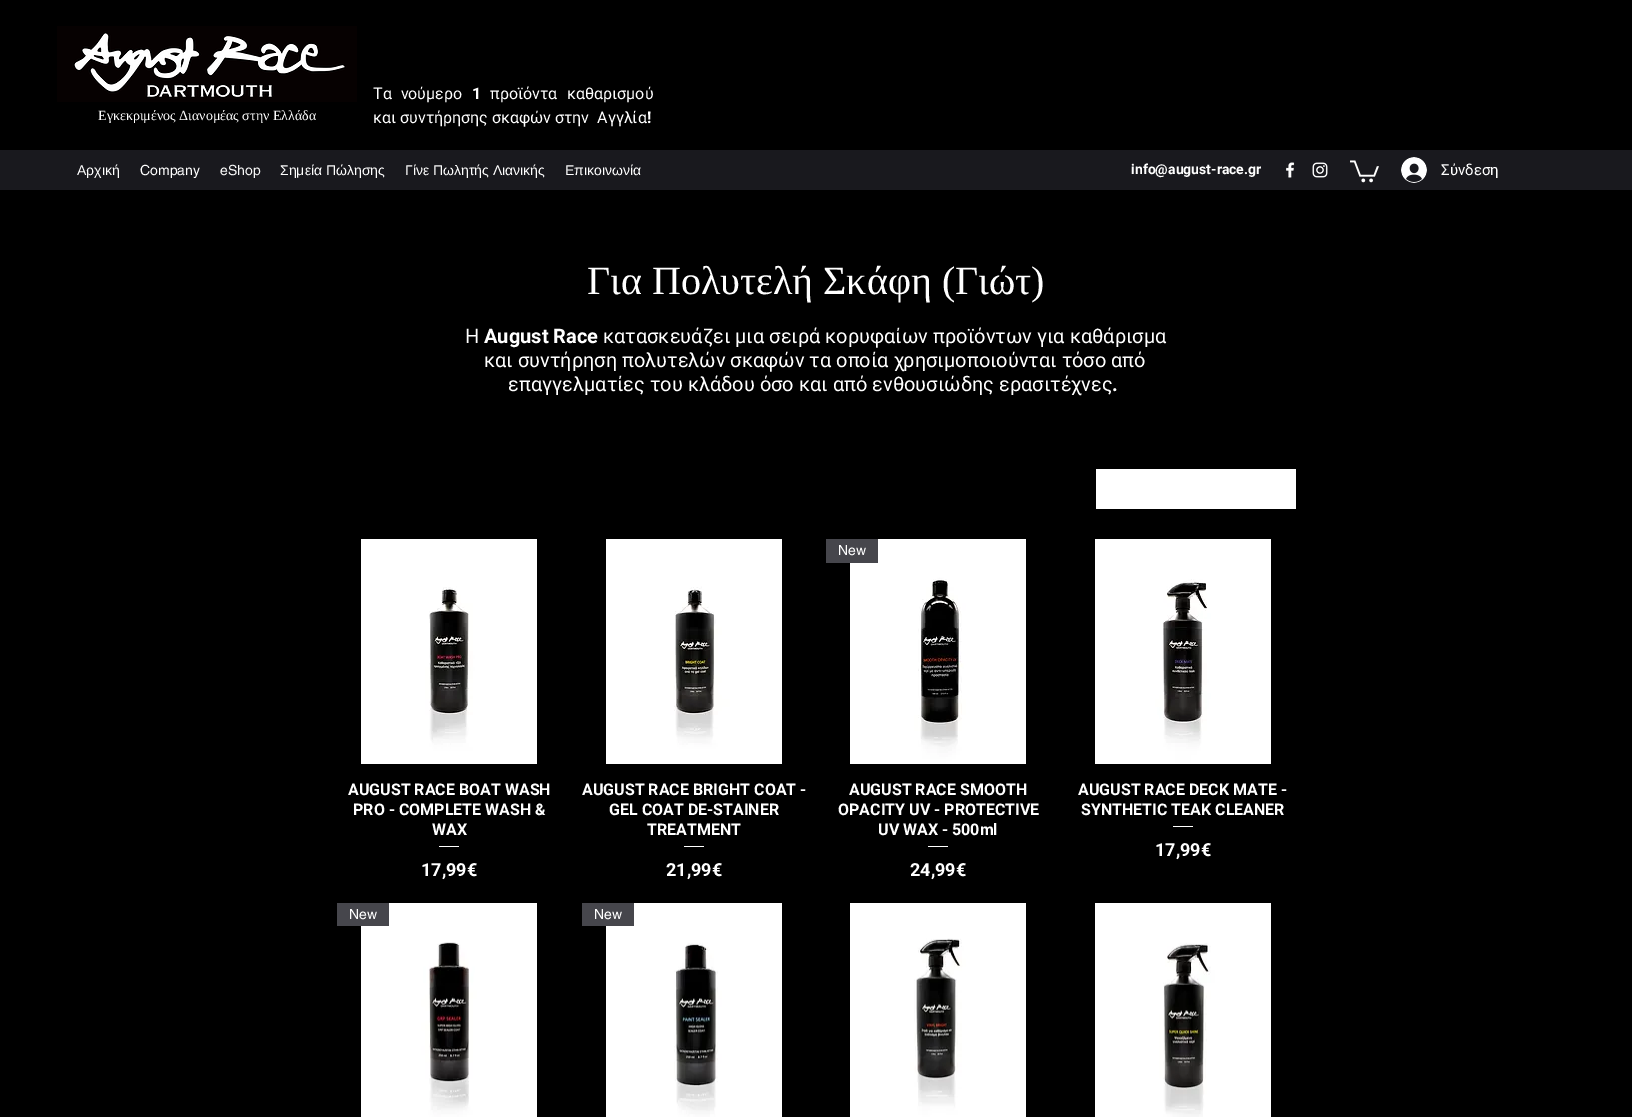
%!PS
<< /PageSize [1632 1117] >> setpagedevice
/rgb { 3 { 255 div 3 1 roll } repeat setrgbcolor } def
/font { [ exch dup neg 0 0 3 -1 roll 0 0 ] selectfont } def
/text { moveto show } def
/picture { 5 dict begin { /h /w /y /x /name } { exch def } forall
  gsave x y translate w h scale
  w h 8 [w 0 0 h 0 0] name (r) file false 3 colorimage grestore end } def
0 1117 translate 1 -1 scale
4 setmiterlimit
0 0 0 rgb
0 0 1632 1117 rectfill
(img_01.rgb) 57 26 300 76 picture
25 25 30 rgb
0 150 1632 40 rectfill
(img_02.rgb) 1286 162 9 16 picture
(img_03.rgb) 1312 162 16 16 picture
(img_04.rgb) 1350 160 29 23 picture
(img_05.rgb) 1401 157 26 26 picture
255 255 255 rgb
1096 469 200 40 rectfill
(img_06.rgb) 361 539 176 225 picture
439 846 20 1 rectfill
(img_07.rgb) 606 539 176 225 picture
684 846 20 1 rectfill
(img_08.rgb) 850 539 176 225 picture
70 70 76 rgb
826 539 52 24 rectfill
255 255 255 rgb
928 846 20 1 rectfill
(img_09.rgb) 1095 539 176 225 picture
1173 826 20 1 rectfill
(img_10.rgb) 361 903 176 214 picture
70 70 76 rgb
337 903 52 23 rectfill
(img_11.rgb) 606 903 176 214 picture
582 903 52 23 rectfill
(img_12.rgb) 850 903 176 214 picture
(img_13.rgb) 1095 903 176 214 picture
/LiberationSerif-Regular 14 font
255 255 255 rgb
(Εγκεκριμένος Διανομέας στην Ελλάδα) 98 120 text
/Roboto-Regular 16 font
373 99 moveto 5 0 32 (Τα νούμερο) widthshow
/Roboto-Bold 16 font
(1) 472 99 text
/Roboto-Regular 16 font
(προϊόντα) 490 99 text
(καθαρισμού) 567 99 text
(και συντήρησης σκαφών στην  Αγγλία) 373 123 text
/Roboto-Bold 16 font
(!) 647 123 text
/LiberationSans-Regular 14 font
(Αρχική) 77 175 text
/helvetica-Regular 14 font
(Company) 140 175 text
247 247 247 rgb
(eShop) 220 175 text
/LiberationSans-Regular 14 font
255 255 255 rgb
(Σημεία Πώλησης) 280 175 text
(Γίνε Πωλητής Λιανικής) 405 175 text
(Επικοινωνία) 565 175 text
/Roboto-Bold 14 font
(info@august-race.gr) 1131 174 text
/Roboto-Regular 15 font
(Σύνδεση) 1441 175 text
/LiberationSerif-Regular 40 font
(Για Πολυτελή Σκάφη \(Γιώτ\)) 587 294 text
/Roboto-Regular 20 font
(Η) 465 343 text
/Roboto-Bold 20 font
(August Race) 484 343 text
/Roboto-Regular 20 font
(κατασκευάζει μια σειρά κορυφαίων προϊόντων για καθάρισμα) 603 343 text
(και συντήρηση πολυτελών σκαφών τα οποία χρησιμοποιούνται τόσο από) 484 367 text
(επαγγελματίες του κλάδου όσο και από ενθουσιώδης ερασιτέχνες) 508 391 text
/Roboto-Bold 20 font
(.) 1112 391 text
/Roboto-Bold 16 font
(AUGUST RACE BOAT WASH) 348 795 text
(PRO - COMPLETE WASH &) 353 815 text
(WAX) 432 835 text
/Roboto-Bold 18 font
(17,99€) 421 876 text
/Roboto-Bold 16 font
(AUGUST RACE BRIGHT COAT -) 582 795 text
(GEL COAT DE-STAINER) 609 815 text
(TREATMENT) 647 835 text
/Roboto-Bold 18 font
(21,99€) 666 876 text
/helvetica-Regular 14 font
(New) 838 555 text
/Roboto-Bold 16 font
(AUGUST RACE SMOOTH) 849 795 text
(OPACITY UV - PROTECTIVE) 838 815 text
(UV WAX - 500ml) 878 835 text
/Roboto-Bold 18 font
(24,99€) 910 876 text
/Roboto-Bold 16 font
(AUGUST RACE DECK MATE -) 1078 795 text
(SYNTHETIC TEAK CLEANER) 1081 815 text
/Roboto-Bold 18 font
(17,99€) 1155 856 text
/helvetica-Regular 14 font
(New) 349 919 text
(New) 594 919 text
showpage
